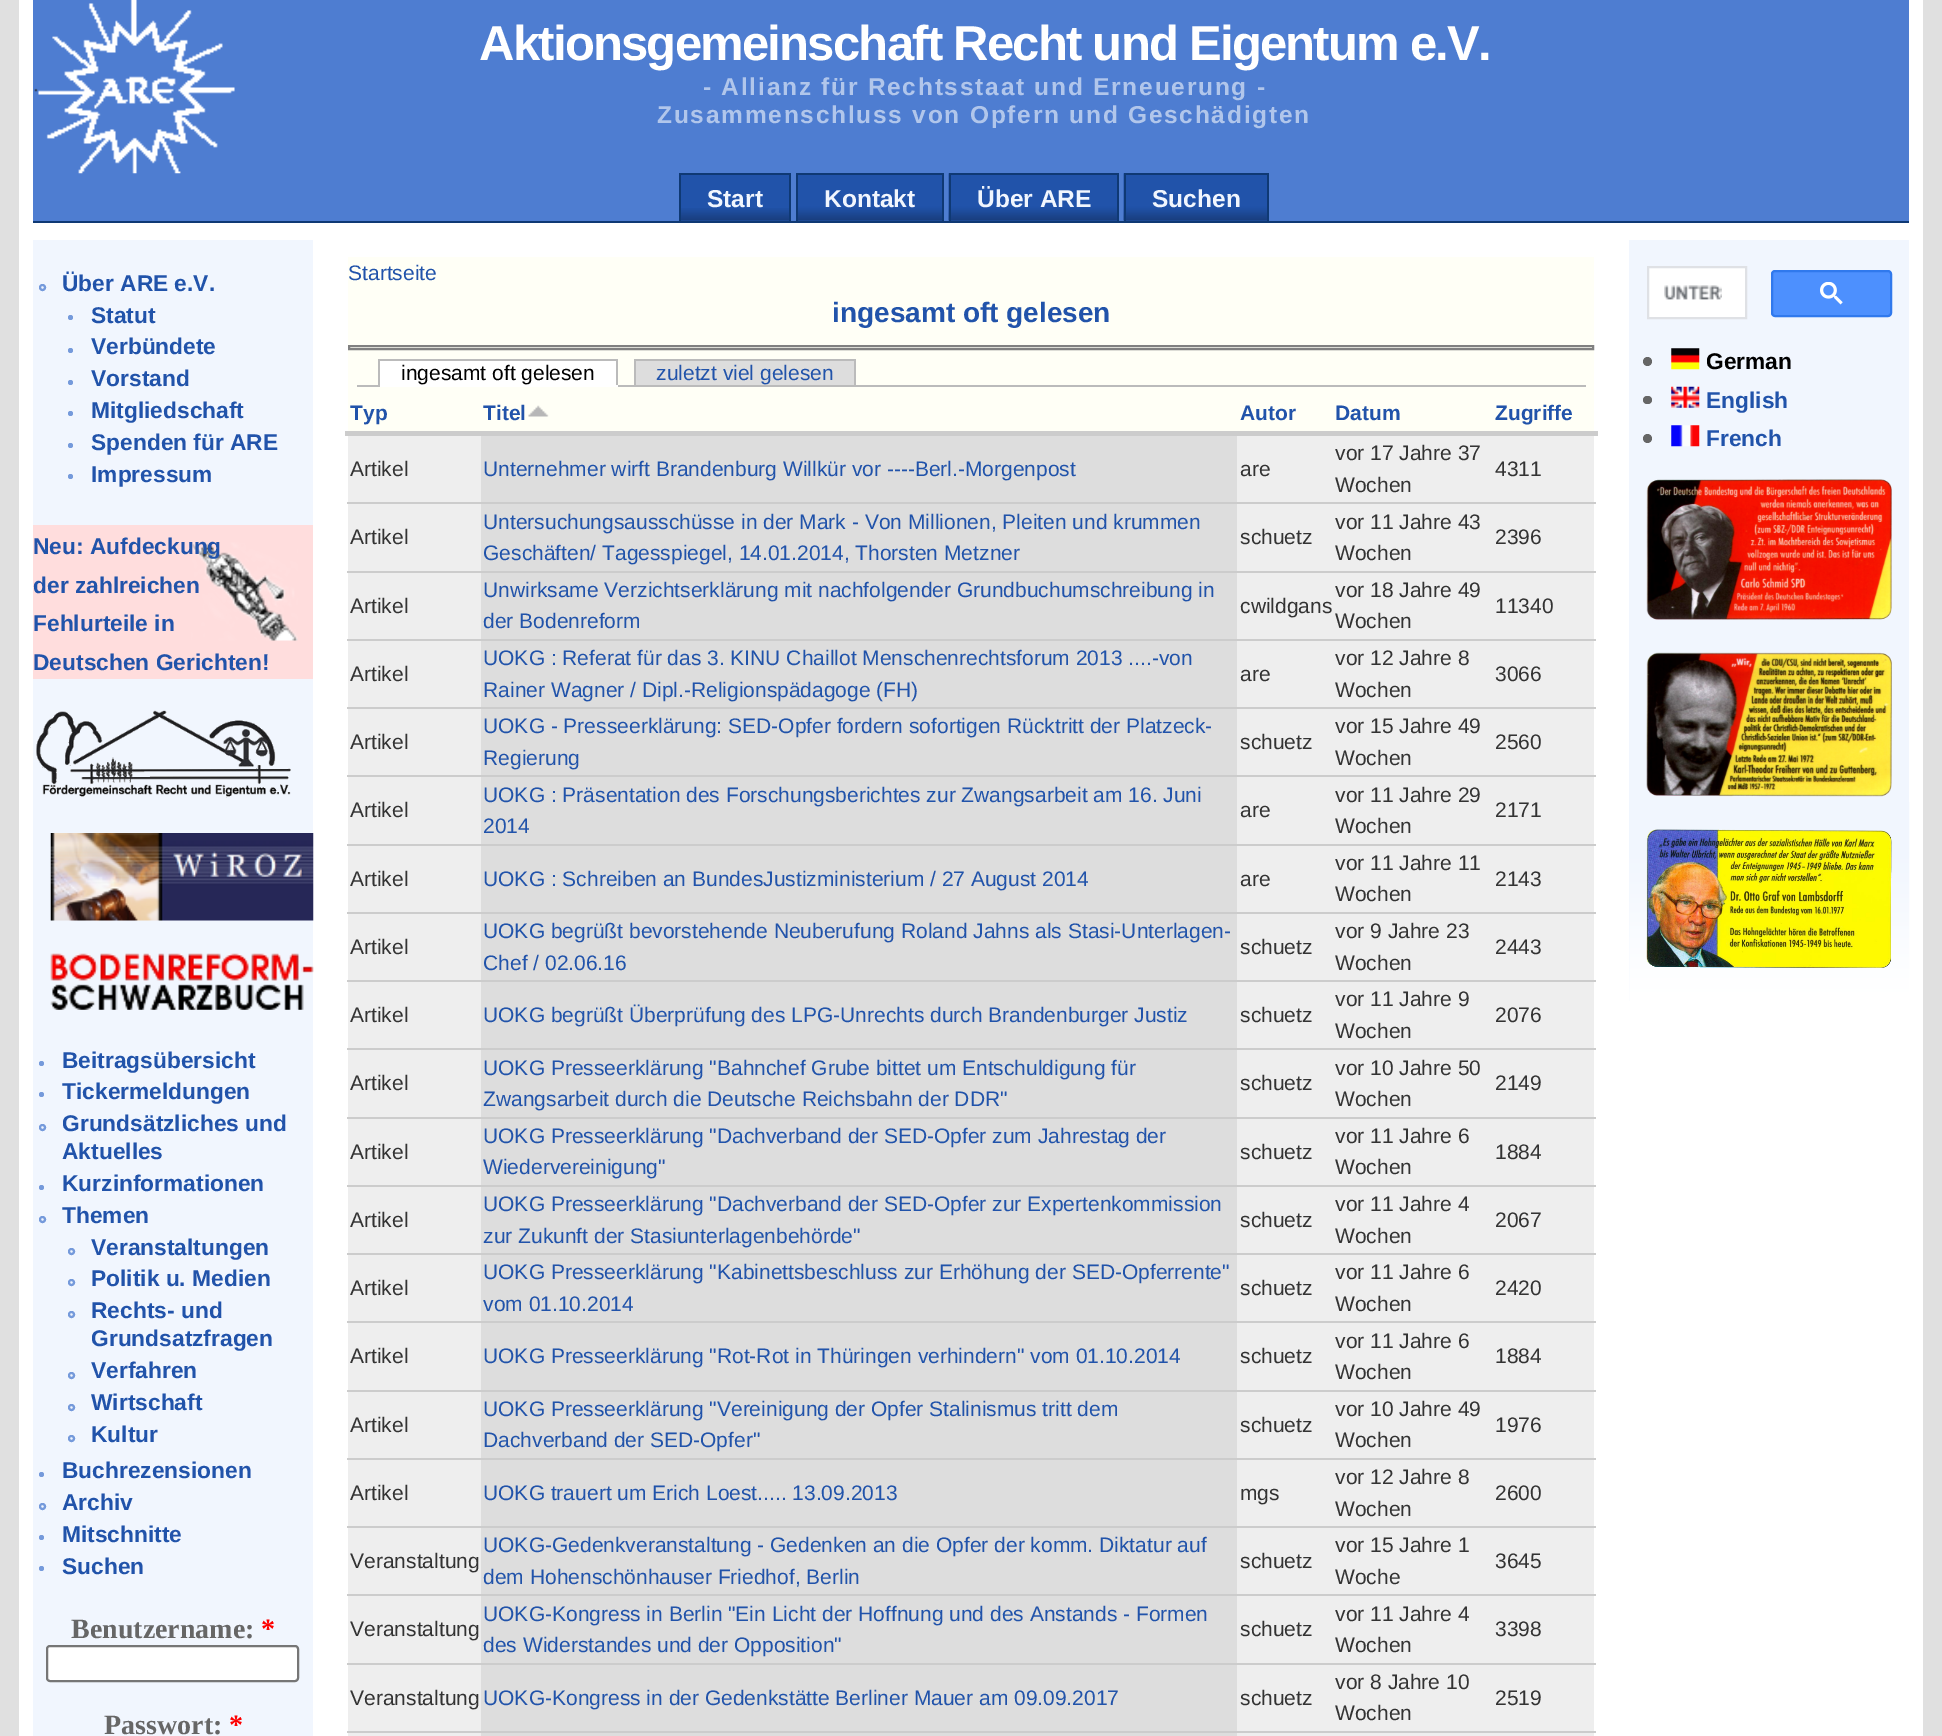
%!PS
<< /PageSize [1942 1736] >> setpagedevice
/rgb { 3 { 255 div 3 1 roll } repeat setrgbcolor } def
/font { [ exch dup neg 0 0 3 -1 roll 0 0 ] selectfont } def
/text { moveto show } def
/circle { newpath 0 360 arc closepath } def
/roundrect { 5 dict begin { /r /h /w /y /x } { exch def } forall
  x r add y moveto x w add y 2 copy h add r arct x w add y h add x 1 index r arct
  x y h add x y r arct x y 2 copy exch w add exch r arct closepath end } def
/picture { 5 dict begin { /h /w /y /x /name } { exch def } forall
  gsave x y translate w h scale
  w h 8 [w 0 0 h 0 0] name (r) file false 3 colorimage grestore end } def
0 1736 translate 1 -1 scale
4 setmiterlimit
224 224 224 rgb
0 0 1942 1736 rectfill
255 255 255 rgb
19 0 1904 1736 rectfill
78 125 209 rgb
33 0 1876 221 rectfill
(img_01.rgb) 34 0 201 174 picture
15 57 116 rgb
33 221 1876 2 rectfill
33 83 170 rgb
798 220 144 1 rectfill
(img_02.rgb) 798 175 144 46 picture
951 220 166 1 rectfill
(img_03.rgb) 948 173 169 48 picture
1126 220 141 1 rectfill
(img_04.rgb) 1123 173 144 48 picture
681 175 108 46 rectfill
15 57 116 rgb
679 173 112 2 rectfill
789 173 2 48 rectfill
679 173 2 48 rectfill
796 173 147 2 rectfill
942 173 2 48 rectfill
796 173 2 48 rectfill
949 173 169 2 rectfill
1117 173 2 48 rectfill
949 173 2 48 rectfill
1124 173 145 2 rectfill
1267 173 2 48 rectfill
1124 173 2 48 rectfill
(img_05.rgb) 681 208 108 13 picture
241 246 254 rgb
33 240 280 1496 rectfill
117 154 219 rgb
2 setlinewidth
42.5 287.5 2.5 circle stroke
70.5 317.5 2.5 circle fill
70.5 350.5 2.5 circle fill
70.5 382.5 2.5 circle fill
70.5 413.5 2.5 circle fill
70.5 445.5 2.5 circle fill
70.5 476.5 2.5 circle fill
255 221 221 rgb
33 525 280 154 rectfill
(img_06.rgb) 191 542 107 99 picture
(img_07.rgb) 36 710 255 88 picture
(img_08.rgb) 50 833 264 88 picture
(img_09.rgb) 50 953 264 57 picture
117 154 219 rgb
41.5 1063.5 2.5 circle fill
41.5 1094.5 2.5 circle fill
42.5 1127.5 2.5 circle stroke
41.5 1187.5 2.5 circle fill
42.5 1219.5 2.5 circle stroke
71.5 1251.5 2.5 circle stroke
71.5 1282.5 2.5 circle stroke
71.5 1314.5 2.5 circle stroke
71.5 1375.5 2.5 circle stroke
71.5 1407.5 2.5 circle stroke
71.5 1438.5 2.5 circle stroke
41.5 1474.5 2.5 circle fill
42.5 1506.5 2.5 circle stroke
41.5 1537.5 2.5 circle fill
41.5 1568.5 2.5 circle fill
255 255 255 rgb
47 1646 251 35 3 roundrect gsave fill grestore
118 118 118 rgb
stroke
255 255 246 rgb
348 257 1246 174 rectfill
128 128 128 rgb
349 346 1244 3 rectstroke
187 187 187 rgb
357 385 1229 2 rectfill
255 255 255 rgb
380 361 236 24 rectfill
187 187 187 rgb
378 359 240 2 rectfill
616 359 2 28 rectfill
255 255 255 rgb
378 385 240 2 rectfill
187 187 187 rgb
378 359 2 28 rectfill
221 221 221 rgb
636 361 218 24 rectfill
187 187 187 rgb
634 359 222 2 rectfill
854 359 2 26 rectfill
634 359 2 26 rectfill
(img_10.rgb) 528 405 21 12 picture
204 204 204 rgb
345 431 1253 5 rectfill
238 238 238 rgb
348 436 1246 66 rectfill
204 204 204 rgb
347 502 1249 2 rectfill
221 221 221 rgb
481 436 756 66 rectfill
238 238 238 rgb
348 504 1246 67 rectfill
204 204 204 rgb
347 571 1249 2 rectfill
221 221 221 rgb
481 504 756 67 rectfill
238 238 238 rgb
348 573 1246 66 rectfill
204 204 204 rgb
347 639 1249 2 rectfill
221 221 221 rgb
481 573 756 66 rectfill
238 238 238 rgb
348 641 1246 66 rectfill
204 204 204 rgb
347 707 1249 2 rectfill
221 221 221 rgb
481 641 756 66 rectfill
238 238 238 rgb
348 709 1246 66 rectfill
204 204 204 rgb
347 775 1249 2 rectfill
221 221 221 rgb
481 709 756 66 rectfill
238 238 238 rgb
348 777 1246 67 rectfill
204 204 204 rgb
347 844 1249 2 rectfill
221 221 221 rgb
481 777 756 67 rectfill
238 238 238 rgb
348 846 1246 66 rectfill
204 204 204 rgb
347 912 1249 2 rectfill
221 221 221 rgb
481 846 756 66 rectfill
238 238 238 rgb
348 914 1246 66 rectfill
204 204 204 rgb
347 980 1249 2 rectfill
221 221 221 rgb
481 914 756 66 rectfill
238 238 238 rgb
348 982 1246 66 rectfill
204 204 204 rgb
347 1048 1249 2 rectfill
221 221 221 rgb
481 982 756 66 rectfill
238 238 238 rgb
348 1050 1246 67 rectfill
204 204 204 rgb
347 1117 1249 2 rectfill
221 221 221 rgb
481 1050 756 67 rectfill
238 238 238 rgb
348 1119 1246 66 rectfill
204 204 204 rgb
347 1185 1249 2 rectfill
221 221 221 rgb
481 1119 756 66 rectfill
238 238 238 rgb
348 1187 1246 66 rectfill
204 204 204 rgb
347 1253 1249 2 rectfill
221 221 221 rgb
481 1187 756 66 rectfill
238 238 238 rgb
348 1255 1246 66 rectfill
204 204 204 rgb
347 1321 1249 2 rectfill
221 221 221 rgb
481 1255 756 66 rectfill
238 238 238 rgb
348 1323 1246 67 rectfill
204 204 204 rgb
347 1390 1249 2 rectfill
221 221 221 rgb
481 1323 756 67 rectfill
238 238 238 rgb
348 1392 1246 66 rectfill
204 204 204 rgb
347 1458 1249 2 rectfill
221 221 221 rgb
481 1392 756 66 rectfill
238 238 238 rgb
348 1460 1246 66 rectfill
204 204 204 rgb
347 1526 1249 2 rectfill
221 221 221 rgb
481 1460 756 66 rectfill
238 238 238 rgb
348 1528 1246 66 rectfill
204 204 204 rgb
347 1594 1249 2 rectfill
221 221 221 rgb
481 1528 756 66 rectfill
238 238 238 rgb
348 1596 1246 67 rectfill
204 204 204 rgb
347 1663 1249 2 rectfill
221 221 221 rgb
481 1596 756 67 rectfill
238 238 238 rgb
348 1665 1246 66 rectfill
204 204 204 rgb
347 1731 1249 2 rectfill
221 221 221 rgb
481 1665 756 66 rectfill
238 238 238 rgb
348 1733 1246 3 rectfill
221 221 221 rgb
481 1733 756 3 rectfill
241 246 254 rgb
1629 240 280 761 rectfill
(img_11.rgb) 1629 802 281 199 picture
255 255 255 rgb
1648 267 moveto 98 0 rlineto 0 51 rlineto -98 0 rlineto closepath gsave fill grestore
223 225 229 rgb
stroke
(img_12.rgb) 1664 285 58 15 picture
77 144 254 rgb
1772 271 119 45 3 roundrect gsave fill grestore
48 121 237 rgb
stroke
(img_13.rgb) 1820 282 23 23 picture
102 102 102 rgb
1647.5 361.5 4.5 circle fill
(img_14.rgb) 1671 348 29 22 picture
1643 396 9 8 4 roundrect fill
(img_15.rgb) 1671 386 29 22 picture
1647.5 438.5 4.5 circle fill
(img_16.rgb) 1671 425 29 22 picture
(img_17.rgb) 1646 479 246 141 picture
(img_18.rgb) 1646 652 246 145 picture
(img_19.rgb) 1646 829 246 139 picture
/LiberationSans-Bold 49 font
255 255 255 rgb
479 60 moveto -1.75 0 (Aktionsgemeinschaft Recht und Eigentum e.V.) ashow
/LiberationSans-Bold 24.5 font
177 198 235 rgb
703 95 moveto 1.75 0 (- Allianz für Rechtsstaat und Erneuerung -) ashow
657 123 moveto 1.75 0 (Zusammenschluss von Opfern und Geschädigten) ashow
241 246 254 rgb
(Start) 707 207 text
(Kontakt) 824 207 text
(Über ARE) 977 207 text
(Suchen) 1152 207 text
/LiberationSans-Bold 22.75 font
33 83 170 rgb
(Über ARE e.V.) 62 291 text
(Statut) 91 323 text
(Verbündete) 91 354 text
(Vorstand) 91 386 text
(Mitgliedschaft) 91 418 text
(Spenden für ARE) 91 450 text
(Impressum) 91 482 text
(Neu: Aufdeckung) 33 554 text
(der zahlreichen) 33 593 text
(Fehlurteile in) 33 631 text
(Deutschen Gerichten!) 33 670 text
(Beitragsübersicht) 62 1068 text
(Tickermeldungen) 62 1099 text
(Grundsätzliches und) 62 1131 text
(Aktuelles) 62 1159 text
(Kurzinformationen) 62 1191 text
(Themen) 62 1223 text
(Veranstaltungen) 91 1255 text
(Politik u. Medien) 91 1286 text
(Rechts- und) 91 1318 text
(Grundsatzfragen) 91 1346 text
(Verfahren) 91 1378 text
(Wirtschaft) 91 1410 text
(Kultur) 91 1442 text
(Buchrezensionen) 62 1478 text
(Archiv) 62 1510 text
(Mitschnitte) 62 1542 text
(Suchen) 62 1574 text
/LiberationSerif-Bold 28 font
102 102 102 rgb
(Benutzername:) 71 1638 text
255 0 0 rgb
(*) 261 1638 text
102 102 102 rgb
(Passwort:) 104 1734 text
255 0 0 rgb
(*) 229 1734 text
/LiberationSans-Regular 21 font
33 83 170 rgb
(Startseite) 348 280 text
/LiberationSans-Bold 28 font
(ingesamt oft gelesen) 832 322 text
/LiberationSans-Regular 21 font
0 0 0 rgb
(ingesamt oft gelesen) 401 380 text
33 83 170 rgb
(zuletzt viel gelesen) 656 380 text
/LiberationSans-Bold 21 font
(Typ) 350 420 text
(Titel) 483 420 text
(Autor) 1240 420 text
(Datum) 1335 420 text
(Zugriffe) 1495 420 text
/LiberationSans-Regular 21 font
51 51 51 rgb
(Artikel) 350 476 text
33 83 170 rgb
(Unternehmer wirft Brandenburg Willkür vor ----Berl.-Morgenpost) 483 476 text
51 51 51 rgb
(are) 1240 476 text
(vor 17 Jahre 37) 1335 460 text
(Wochen) 1335 492 text
(4311) 1495 476 text
(Artikel) 350 544 text
33 83 170 rgb
(Untersuchungsausschüsse in der Mark - Von Millionen, Pleiten und krummen) 483 529 text
(Geschäften/ Tagesspiegel, 14.01.2014, Thorsten Metzner) 483 560 text
51 51 51 rgb
(schuetz) 1240 544 text
(vor 11 Jahre 43) 1335 529 text
(Wochen) 1335 560 text
(2396) 1495 544 text
(Artikel) 350 613 text
33 83 170 rgb
(Unwirksame Verzichtserklärung mit nachfolgender Grundbuchumschreibung in) 483 597 text
(der Bodenreform) 483 628 text
51 51 51 rgb
(cwildgans) 1240 613 text
(vor 18 Jahre 49) 1335 597 text
(Wochen) 1335 628 text
(11340) 1495 613 text
(Artikel) 350 681 text
33 83 170 rgb
(UOKG : Referat für das 3. KINU Chaillot Menschenrechtsforum 2013 ....-von) 483 665 text
(Rainer Wagner / Dipl.-Religionspädagoge \(FH\)) 483 697 text
51 51 51 rgb
(are) 1240 681 text
(vor 12 Jahre 8) 1335 665 text
(Wochen) 1335 697 text
(3066) 1495 681 text
(Artikel) 350 749 text
33 83 170 rgb
(UOKG - Presseerklärung: SED-Opfer fordern sofortigen Rücktritt der Platzeck-) 483 733 text
(Regierung) 483 765 text
51 51 51 rgb
(schuetz) 1240 749 text
(vor 15 Jahre 49) 1335 733 text
(Wochen) 1335 765 text
(2560) 1495 749 text
(Artikel) 350 817 text
33 83 170 rgb
(UOKG : Präsentation des Forschungsberichtes zur Zwangsarbeit am 16. Juni) 483 802 text
(2014) 483 833 text
51 51 51 rgb
(are) 1240 817 text
(vor 11 Jahre 29) 1335 802 text
(Wochen) 1335 833 text
(2171) 1495 817 text
(Artikel) 350 886 text
33 83 170 rgb
(UOKG : Schreiben an BundesJustizministerium / 27 August 2014) 483 886 text
51 51 51 rgb
(are) 1240 886 text
(vor 11 Jahre 11) 1335 870 text
(Wochen) 1335 901 text
(2143) 1495 886 text
(Artikel) 350 954 text
33 83 170 rgb
(UOKG begrüßt bevorstehende Neuberufung Roland Jahns als Stasi-Unterlagen-) 483 938 text
(Chef / 02.06.16) 483 970 text
51 51 51 rgb
(schuetz) 1240 954 text
(vor 9 Jahre 23) 1335 938 text
(Wochen) 1335 970 text
(2443) 1495 954 text
(Artikel) 350 1022 text
33 83 170 rgb
(UOKG begrüßt Überprüfung des LPG-Unrechts durch Brandenburger Justiz) 483 1022 text
51 51 51 rgb
(schuetz) 1240 1022 text
(vor 11 Jahre 9) 1335 1006 text
(Wochen) 1335 1038 text
(2076) 1495 1022 text
(Artikel) 350 1090 text
33 83 170 rgb
(UOKG Presseerklärung "Bahnchef Grube bittet um Entschuldigung für) 483 1075 text
(Zwangsarbeit durch die Deutsche Reichsbahn der DDR") 483 1106 text
51 51 51 rgb
(schuetz) 1240 1090 text
(vor 10 Jahre 50) 1335 1075 text
(Wochen) 1335 1106 text
(2149) 1495 1090 text
(Artikel) 350 1159 text
33 83 170 rgb
(UOKG Presseerklärung "Dachverband der SED-Opfer zum Jahrestag der) 483 1143 text
(Wiedervereinigung") 483 1174 text
51 51 51 rgb
(schuetz) 1240 1159 text
(vor 11 Jahre 6) 1335 1143 text
(Wochen) 1335 1174 text
(1884) 1495 1159 text
(Artikel) 350 1227 text
33 83 170 rgb
(UOKG Presseerklärung "Dachverband der SED-Opfer zur Expertenkommission) 483 1211 text
(zur Zukunft der Stasiunterlagenbehörde") 483 1243 text
51 51 51 rgb
(schuetz) 1240 1227 text
(vor 11 Jahre 4) 1335 1211 text
(Wochen) 1335 1243 text
(2067) 1495 1227 text
(Artikel) 350 1295 text
33 83 170 rgb
(UOKG Presseerklärung "Kabinettsbeschluss zur Erhöhung der SED-Opferrente") 483 1279 text
(vom 01.10.2014) 483 1311 text
51 51 51 rgb
(schuetz) 1240 1295 text
(vor 11 Jahre 6) 1335 1279 text
(Wochen) 1335 1311 text
(2420) 1495 1295 text
(Artikel) 350 1363 text
33 83 170 rgb
(UOKG Presseerklärung "Rot-Rot in Thüringen verhindern" vom 01.10.2014) 483 1363 text
51 51 51 rgb
(schuetz) 1240 1363 text
(vor 11 Jahre 6) 1335 1348 text
(Wochen) 1335 1379 text
(1884) 1495 1363 text
(Artikel) 350 1432 text
33 83 170 rgb
(UOKG Presseerklärung "Vereinigung der Opfer Stalinismus tritt dem) 483 1416 text
(Dachverband der SED-Opfer") 483 1447 text
51 51 51 rgb
(schuetz) 1240 1432 text
(vor 10 Jahre 49) 1335 1416 text
(Wochen) 1335 1447 text
(1976) 1495 1432 text
(Artikel) 350 1500 text
33 83 170 rgb
(UOKG trauert um Erich Loest..... 13.09.2013) 483 1500 text
51 51 51 rgb
(mgs) 1240 1500 text
(vor 12 Jahre 8) 1335 1484 text
(Wochen) 1335 1516 text
(2600) 1495 1500 text
(Veranstaltung) 350 1568 text
33 83 170 rgb
(UOKG-Gedenkveranstaltung - Gedenken an die Opfer der komm. Diktatur auf) 483 1552 text
(dem Hohenschönhauser Friedhof, Berlin) 483 1584 text
51 51 51 rgb
(schuetz) 1240 1568 text
(vor 15 Jahre 1) 1335 1552 text
(Woche) 1335 1584 text
(3645) 1495 1568 text
(Veranstaltung) 350 1636 text
33 83 170 rgb
(UOKG-Kongress in Berlin "Ein Licht der Hoffnung und des Anstands - Formen) 483 1621 text
(des Widerstandes und der Opposition") 483 1652 text
51 51 51 rgb
(schuetz) 1240 1636 text
(vor 11 Jahre 4) 1335 1621 text
(Wochen) 1335 1652 text
(3398) 1495 1636 text
(Veranstaltung) 350 1705 text
33 83 170 rgb
(UOKG-Kongress in der Gedenkstätte Berliner Mauer am 09.09.2017) 483 1705 text
51 51 51 rgb
(schuetz) 1240 1705 text
(vor 8 Jahre 10) 1335 1689 text
(Wochen) 1335 1720 text
(2519) 1495 1705 text
/LiberationSans-Bold 22.75 font
0 0 0 rgb
(German) 1706 369 text
33 83 170 rgb
(English) 1706 408 text
(French) 1706 446 text
showpage
